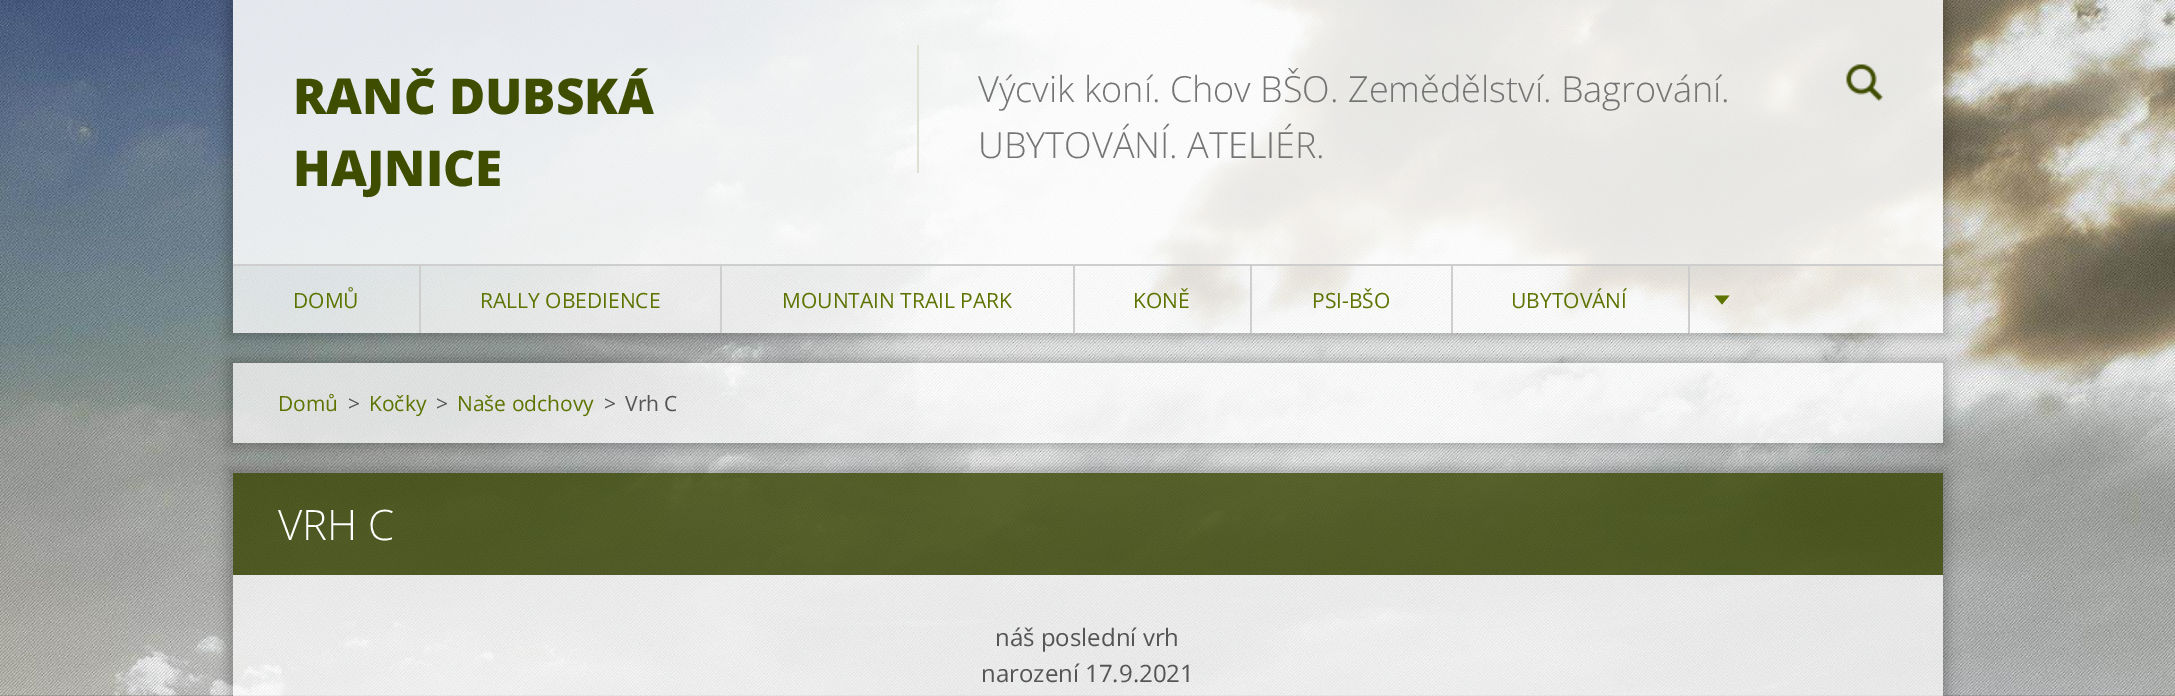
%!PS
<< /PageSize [2175 696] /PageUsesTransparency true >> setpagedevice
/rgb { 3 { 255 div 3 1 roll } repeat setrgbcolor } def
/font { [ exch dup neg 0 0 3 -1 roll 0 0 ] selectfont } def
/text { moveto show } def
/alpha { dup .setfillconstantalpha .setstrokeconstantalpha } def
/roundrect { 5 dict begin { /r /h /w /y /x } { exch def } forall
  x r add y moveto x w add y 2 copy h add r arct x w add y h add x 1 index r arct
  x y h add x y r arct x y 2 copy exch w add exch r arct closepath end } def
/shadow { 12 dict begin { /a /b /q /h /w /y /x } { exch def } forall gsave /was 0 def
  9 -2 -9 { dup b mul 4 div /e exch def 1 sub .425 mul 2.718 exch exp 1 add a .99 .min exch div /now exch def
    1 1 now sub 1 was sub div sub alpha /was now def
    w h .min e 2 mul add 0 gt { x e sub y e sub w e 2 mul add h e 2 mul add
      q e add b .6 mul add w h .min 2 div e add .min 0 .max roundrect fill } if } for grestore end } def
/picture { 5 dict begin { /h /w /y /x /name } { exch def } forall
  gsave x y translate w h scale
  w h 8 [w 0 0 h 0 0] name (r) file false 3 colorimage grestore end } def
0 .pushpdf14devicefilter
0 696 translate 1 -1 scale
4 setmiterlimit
255 255 255 rgb
0 0 2175 696 rectfill
(img_01.rgb) 0 0 2175 696 picture
gsave
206 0 moveto 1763 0 rlineto 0 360 rlineto -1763 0 rlineto closepath 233 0 moveto 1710 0 rlineto 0 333 rlineto -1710 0 rlineto closepath eoclip newpath
0 0 0 rgb
228 -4 1719 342 0 7 0.25 shadow
grestore
0.85 alpha
233 0 1710 264 rectfill
1 alpha
220 226 207 rgb
917 45 2 128 rectfill
(img_02.rgb) 1846 64 37 37 picture
206 206 206 rgb
233 264 1710 2 rectfill
0.75 alpha
255 255 255 rgb
233 266 1710 67 rectfill
1 alpha
206 206 206 rgb
419 266 2 67 rectfill
720 266 2 67 rectfill
1073 266 2 67 rectfill
1250 266 2 67 rectfill
1451 266 2 67 rectfill
1688 266 2 67 rectfill
93 116 0 rgb
1714.5 295.5 moveto 15 0 rlineto -7.5 9 rlineto closepath fill
gsave
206 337 moveto 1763 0 rlineto 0 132 rlineto -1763 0 rlineto closepath 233 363 moveto 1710 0 rlineto 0 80 rlineto -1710 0 rlineto closepath eoclip newpath
0 0 0 rgb
228 359 1719 88 0 7 0.25 shadow
grestore
0.7 alpha
255 255 255 rgb
233 363 1710 80 rectfill
gsave
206 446 moveto 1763 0 rlineto 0 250 rlineto -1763 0 rlineto closepath 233 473 moveto 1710 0 rlineto 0 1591 rlineto -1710 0 rlineto closepath eoclip newpath
1 alpha
0 0 0 rgb
228 468 1719 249 0 7 0.25 shadow
grestore
0.8 alpha
53 66 0 rgb
233 473 1710 102 rectfill
0.7 alpha
255 255 255 rgb
233 575 1710 121 rectfill
/OpenSans-ExtraBold 49.5 font
1 alpha
62 77 0 rgb
(RANČ DUBSKÁ) 293 114 text
(HAJNICE) 293 186 text
/OpenSans-Light 36 font
116 116 116 rgb
(Výcvik koní. Chov BŠO. Zemědělství. Bagrování.) 978 102 text
(UBYTOVÁNÍ. ATELIÉR.) 978 158 text
/OpenSans-Regular 21 font
93 116 0 rgb
(DOMŮ) 293 308 text
(RALLY OBEDIENCE) 480 308 text
(MOUNTAIN TRAIL PARK) 782 308 text
(KONĚ) 1133 308 text
(PSI-BŠO) 1312 308 text
(UBYTOVÁNÍ) 1511 308 text
(Domů) 278 411 text
85 85 85 rgb
(>) 348 411 text
93 116 0 rgb
(Kočky) 369 411 text
85 85 85 rgb
(>) 436 411 text
93 116 0 rgb
(Naše odchovy) 457 411 text
85 85 85 rgb
(>) 604 411 text
(Vrh C) 625 411 text
/OpenSans-Light 42 font
255 255 255 rgb
(VRH C) 278 540 text
/OpenSans-Regular 24 font
85 85 85 rgb
(náš poslední vrh) 995 646 text
(narození 17.9.2021) 981 682 text
.poppdf14devicefilter showpage
